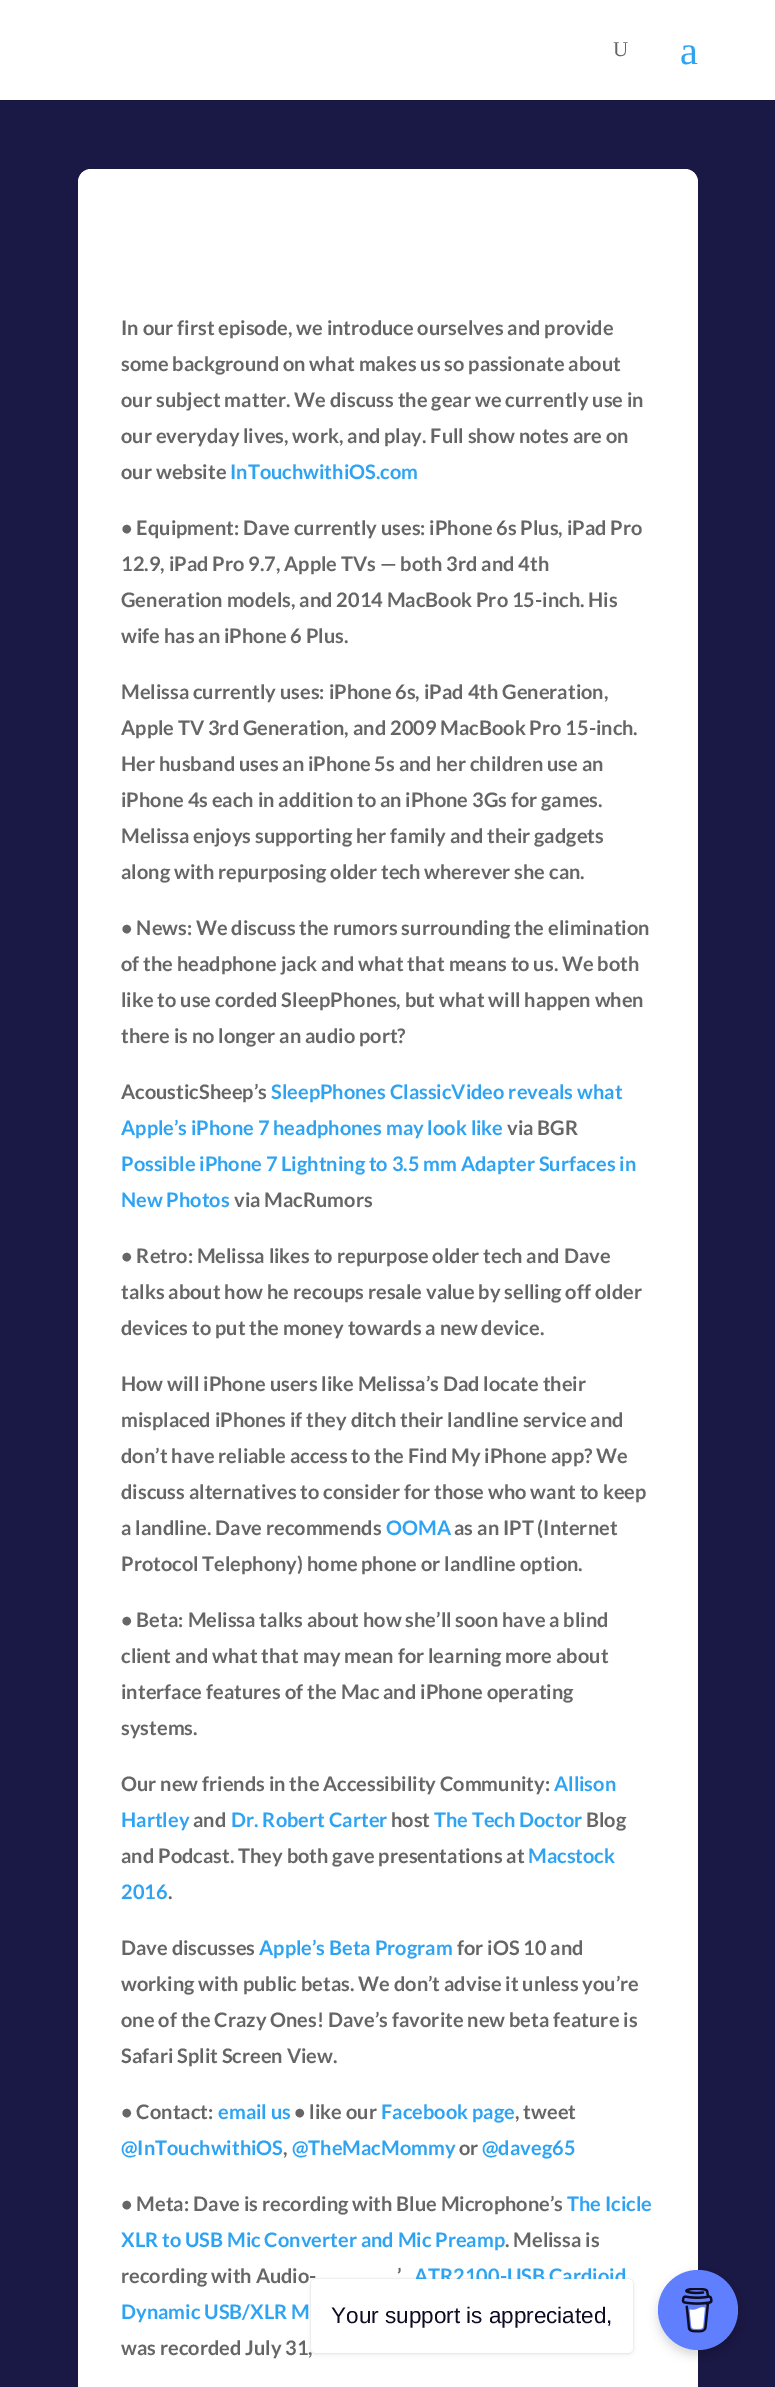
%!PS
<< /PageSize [775 2387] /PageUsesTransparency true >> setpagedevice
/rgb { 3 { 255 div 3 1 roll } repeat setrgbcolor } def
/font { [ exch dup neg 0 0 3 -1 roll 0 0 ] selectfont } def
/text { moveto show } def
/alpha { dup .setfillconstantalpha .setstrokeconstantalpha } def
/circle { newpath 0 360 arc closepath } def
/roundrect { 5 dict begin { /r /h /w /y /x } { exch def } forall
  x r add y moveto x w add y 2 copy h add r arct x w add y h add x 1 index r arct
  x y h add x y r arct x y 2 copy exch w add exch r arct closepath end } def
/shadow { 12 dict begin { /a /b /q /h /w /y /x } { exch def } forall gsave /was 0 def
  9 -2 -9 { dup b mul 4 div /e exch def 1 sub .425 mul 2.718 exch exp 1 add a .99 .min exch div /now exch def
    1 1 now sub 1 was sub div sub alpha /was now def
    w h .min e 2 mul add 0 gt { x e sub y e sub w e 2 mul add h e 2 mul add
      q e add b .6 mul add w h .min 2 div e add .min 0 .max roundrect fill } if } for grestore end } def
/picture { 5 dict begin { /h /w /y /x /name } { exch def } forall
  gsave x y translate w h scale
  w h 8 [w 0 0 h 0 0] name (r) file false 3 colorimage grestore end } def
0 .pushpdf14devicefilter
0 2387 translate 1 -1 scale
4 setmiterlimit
26 24 68 rgb
0 0 775 2387 rectfill
23 22 61 rgb
0 100 775 1 rectfill
255 255 255 rgb
0 0 775 100 rectfill
78 169 620 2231 13 roundrect fill
0 0 0 rgb
658 2275 80 80 40 5 0.15 shadow
95 127 255 rgb
698 2310 40 circle fill
(img_01.rgb) 681 2288 32 45 picture
0 0 0 rgb
311 2279 322 74 5 1 0.15 shadow
311 2281 322 74 5 3 0.05 shadow
/LiberationSerif-Regular 21 font
102 102 102 rgb
(U) 613 56 text
/LiberationSerif-Regular 40 font
46 163 242 rgb
(a) 680 64 text
/Lato-Bold 20 font
102 102 102 rgb
(In our first episode, we introduce ourselves and provide) 121 335 text
(some background on what makes us so passionate about) 121 371 text
(our subject matter. We discuss the gear we currently use in) 121 407 text
(our everyday lives, work, and play. Full show notes are on) 121 443 text
(our website) 121 479 text
46 163 242 rgb
(InTouchwithiOS.com) 230 479 text
102 102 102 rgb
(• Equipment: Dave currently uses: iPhone 6s Plus, iPad Pro) 121 535 text
(12.9, iPad Pro 9.7, Apple TVs — both 3rd and 4th) 121 571 text
(Generation models, and 2014 MacBook Pro 15-inch. His) 121 607 text
(wife has an iPhone 6 Plus.) 121 643 text
(Melissa currently uses: iPhone 6s, iPad 4th Generation,) 121 699 text
(Apple TV 3rd Generation, and 2009 MacBook Pro 15-inch.) 121 735 text
(Her husband uses an iPhone 5s and her children use an) 121 771 text
(iPhone 4s each in addition to an iPhone 3Gs for games.) 121 807 text
(Melissa enjoys supporting her family and their gadgets) 121 843 text
(along with repurposing older tech wherever she can.) 121 879 text
(• News: We discuss the rumors surrounding the elimination) 121 935 text
(of the headphone jack and what that means to us. We both) 121 971 text
(like to use corded SleepPhones, but what will happen when) 121 1007 text
(there is no longer an audio port?) 121 1043 text
(AcousticSheep’s) 121 1099 text
46 163 242 rgb
(SleepPhones ClassicVideo reveals what) 271 1099 text
(Apple’s iPhone 7 headphones may look like) 121 1135 text
102 102 102 rgb
(via BGR) 507 1135 text
46 163 242 rgb
(Possible iPhone 7 Lightning to 3.5 mm Adapter Surfaces in) 121 1171 text
(New Photos) 121 1207 text
102 102 102 rgb
(via MacRumors) 234 1207 text
(• Retro: Melissa likes to repurpose older tech and Dave) 121 1263 text
(talks about how he recoups resale value by selling off older) 121 1299 text
(devices to put the money towards a new device.) 121 1335 text
(How will iPhone users like Melissa’s Dad locate their) 121 1391 text
(misplaced iPhones if they ditch their landline service and) 121 1427 text
(don’t have reliable access to the Find My iPhone app? We) 121 1463 text
(discuss alternatives to consider for those who want to keep) 121 1499 text
(a landline. Dave recommends) 121 1535 text
46 163 242 rgb
(OOMA) 386 1535 text
102 102 102 rgb
(as an IPT \(Internet) 454 1535 text
(Protocol Telephony\) home phone or landline option.) 121 1571 text
(• Beta: Melissa talks about how she’ll soon have a blind) 121 1627 text
(client and what that may mean for learning more about) 121 1663 text
(interface features of the Mac and iPhone operating) 121 1699 text
(systems.) 121 1735 text
(Our new friends in the Accessibility Community:) 121 1791 text
46 163 242 rgb
(Allison) 554 1791 text
(Hartley) 121 1827 text
102 102 102 rgb
(and) 193 1827 text
46 163 242 rgb
(Dr. Robert Carter) 231 1827 text
102 102 102 rgb
(host) 391 1827 text
46 163 242 rgb
(The Tech Doctor) 434 1827 text
102 102 102 rgb
(Blog) 586 1827 text
(and Podcast. They both gave presentations at) 121 1863 text
46 163 242 rgb
(Macstock) 528 1863 text
(2016) 121 1899 text
102 102 102 rgb
(.) 168 1899 text
(Dave discusses) 121 1955 text
46 163 242 rgb
(Apple’s Beta Program) 259 1955 text
102 102 102 rgb
(for iOS 10 and) 457 1955 text
(working with public betas. We don’t advise it unless you’re) 121 1991 text
(one of the Crazy Ones! Dave’s favorite new beta feature is) 121 2027 text
(Safari Split Screen View.) 121 2063 text
(• Contact:) 121 2119 text
46 163 242 rgb
(email us) 218 2119 text
102 102 102 rgb
(• like our) 294 2119 text
46 163 242 rgb
(Facebook page) 381 2119 text
102 102 102 rgb
(, tweet) 515 2119 text
46 163 242 rgb
(@InTouchwithiOS) 121 2155 text
102 102 102 rgb
(,) 283 2155 text
46 163 242 rgb
(@TheMacMommy) 292 2155 text
102 102 102 rgb
(or) 459 2155 text
46 163 242 rgb
(@daveg65) 482 2155 text
102 102 102 rgb
(• Meta: Dave is recording with Blue Microphone’s) 121 2211 text
46 163 242 rgb
(The Icicle) 567 2211 text
(XLR to USB Mic Converter and Mic Preamp) 121 2247 text
102 102 102 rgb
(. Melissa is) 505 2247 text
(recording with Audio-) 121 2283 text
(’) 397 2283 text
46 163 242 rgb
(ATR2100-USB Cardioid) 414 2283 text
(Dynamic USB/XLR M) 121 2319 text
102 102 102 rgb
(was recorded July 31,) 121 2355 text
255 255 255 rgb
311 2279 322 74 5 roundrect fill
/LiberationSans-Regular 22.5 font
13 12 34 rgb
(Your support is appreciated,) 331 2323 text
.poppdf14devicefilter showpage
